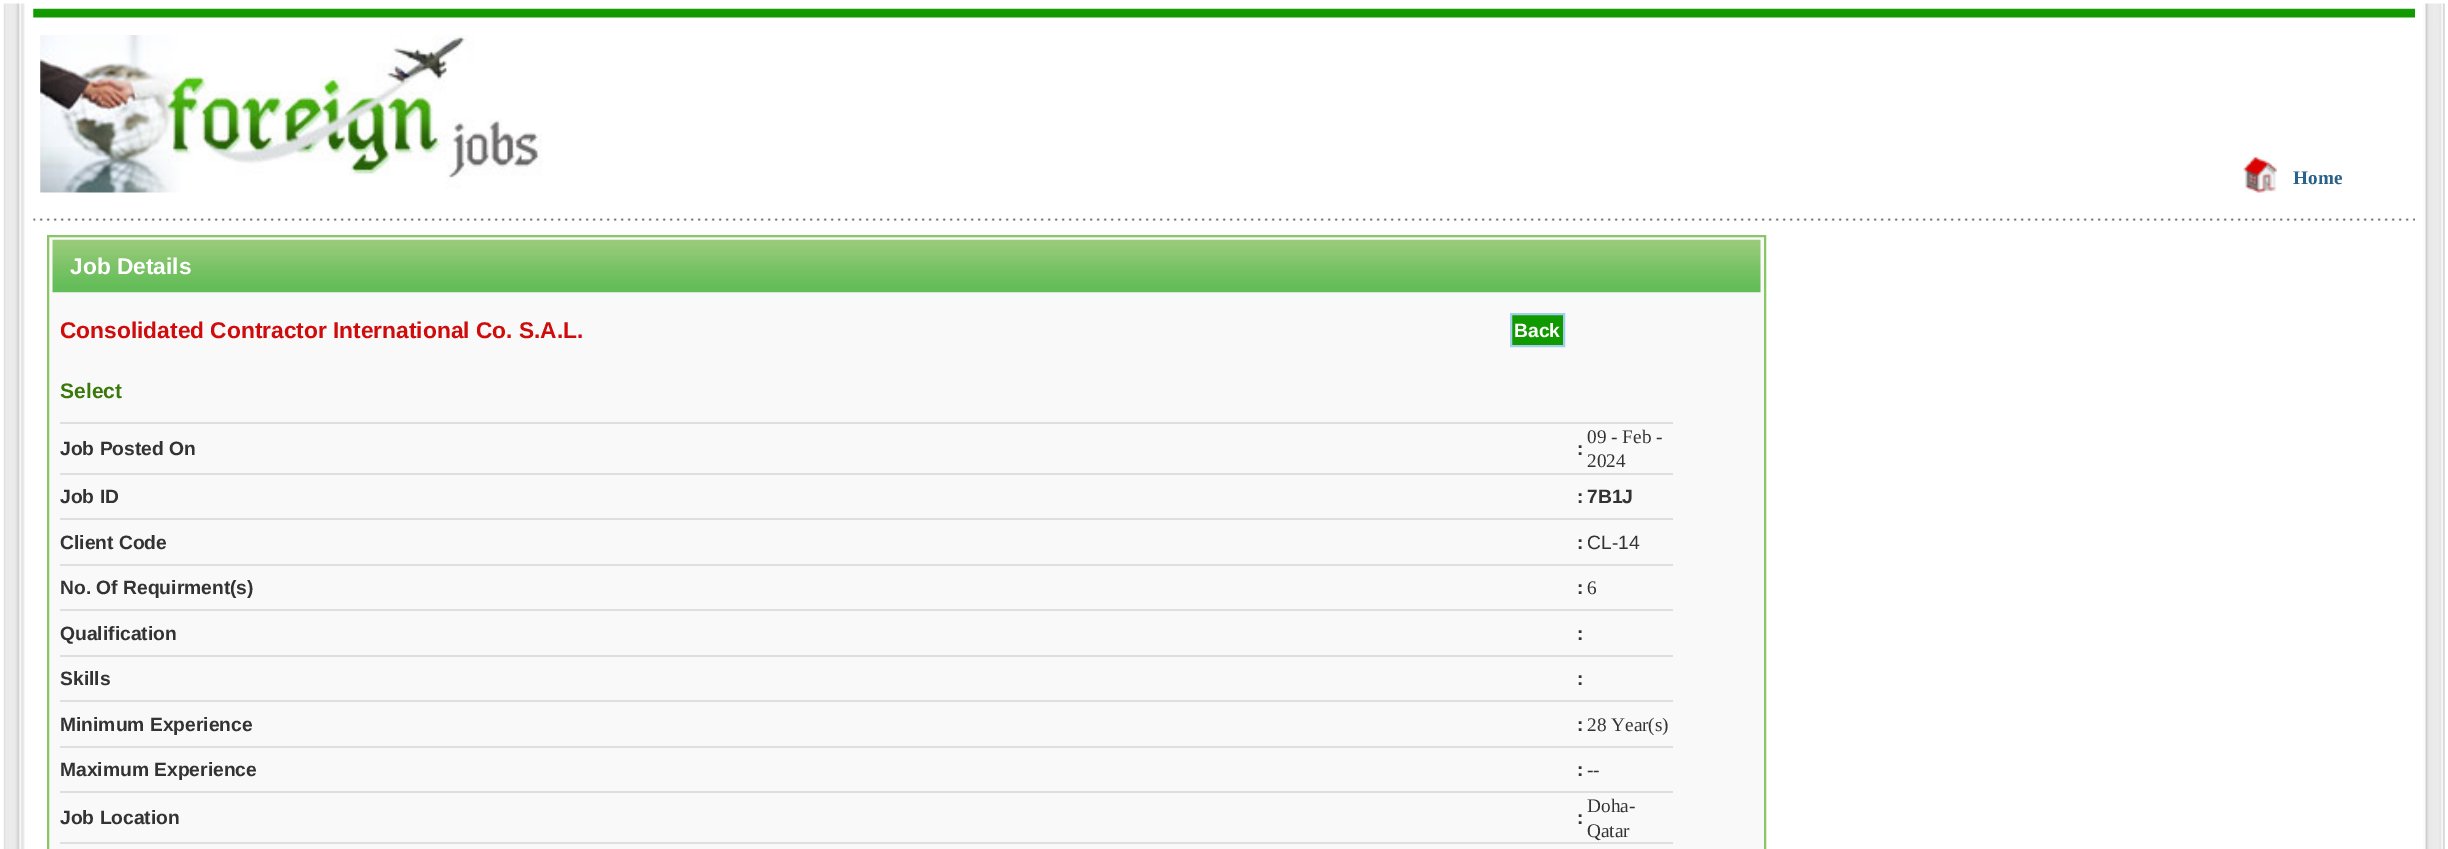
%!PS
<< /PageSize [2448 849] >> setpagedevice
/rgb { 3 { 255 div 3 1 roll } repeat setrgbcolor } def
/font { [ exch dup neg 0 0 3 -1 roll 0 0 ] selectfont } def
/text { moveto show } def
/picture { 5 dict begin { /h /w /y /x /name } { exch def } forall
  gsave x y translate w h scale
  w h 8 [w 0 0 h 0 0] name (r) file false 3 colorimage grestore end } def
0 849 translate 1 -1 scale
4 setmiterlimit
255 255 255 rgb
0 0 2448 849 rectfill
(img_01.rgb) 3 3 22 846 picture
(img_02.rgb) 33 8 2382 10 picture
(img_03.rgb) 40 35 503 158 picture
(img_04.rgb) 2243 157 34 36 picture
(img_05.rgb) 33 218 2382 3 picture
249 249 249 rgb
48 236 moveto 1717 0 rlineto 0 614 rlineto -1717 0 rlineto closepath gsave fill grestore
138 198 102 rgb
2 setlinewidth
stroke
(img_06.rgb) 52 239 1709 54 picture
16 154 0 rgb
1511 314 moveto 53 0 rlineto 0 32 rlineto -53 0 rlineto closepath gsave fill grestore
162 207 233 rgb
stroke
222 223 223 rgb
60 422 1613 2 rectfill
60 473 1613 2 rectfill
60 518 1613 2 rectfill
60 564 1613 2 rectfill
60 609 1613 2 rectfill
60 655 1613 2 rectfill
60 700 1613 2 rectfill
60 746 1613 2 rectfill
60 791 1613 2 rectfill
60 842 1613 2 rectfill
(img_07.rgb) 2423 3 22 846 picture
/LiberationSerif-Bold 19.25 font
42 98 137 rgb
(Home) 2293 184 text
/LiberationSans-Bold 22.75 font
255 255 255 rgb
(Job Details) 70 274 text
207 11 11 rgb
(Consolidated Contractor International Co. S.A.L.) 60 338 text
/LiberationSans-Bold 19.25 font
255 255 255 rgb
(Back) 1514 337 text
/LiberationSans-Bold 21 font
57 121 11 rgb
(Select) 60 398 text
/LiberationSans-Bold 19.25 font
51 51 51 rgb
(Job Posted On) 60 455 text
(:) 1577 455 text
/LiberationSerif-Regular 19.25 font
(09 - Feb -) 1587 443 text
(2024) 1587 467 text
/LiberationSans-Bold 19.25 font
(Job ID) 60 503 text
(:) 1577 503 text
(7B1J) 1587 503 text
(Client Code) 60 549 text
(:) 1577 549 text
/LiberationSans-Regular 19.25 font
(CL-14) 1587 549 text
/LiberationSans-Bold 19.25 font
(No. Of Requirment\(s\)) 60 594 text
(:) 1577 594 text
/LiberationSerif-Regular 19.25 font
(6) 1587 594 text
/LiberationSans-Bold 19.25 font
(Qualification) 60 640 text
(:) 1577 640 text
(Skills) 60 685 text
(:) 1577 685 text
(Minimum Experience) 60 731 text
(:) 1577 731 text
/LiberationSerif-Regular 19.25 font
(28 Year\(s\)) 1587 731 text
/LiberationSans-Bold 19.25 font
(Maximum Experience) 60 776 text
(:) 1577 776 text
/LiberationSerif-Regular 19.25 font
(--) 1587 776 text
/LiberationSans-Bold 19.25 font
(Job Location) 60 824 text
(:) 1577 824 text
/LiberationSerif-Regular 19.25 font
(Doha-) 1587 812 text
(Qatar) 1587 837 text
showpage
